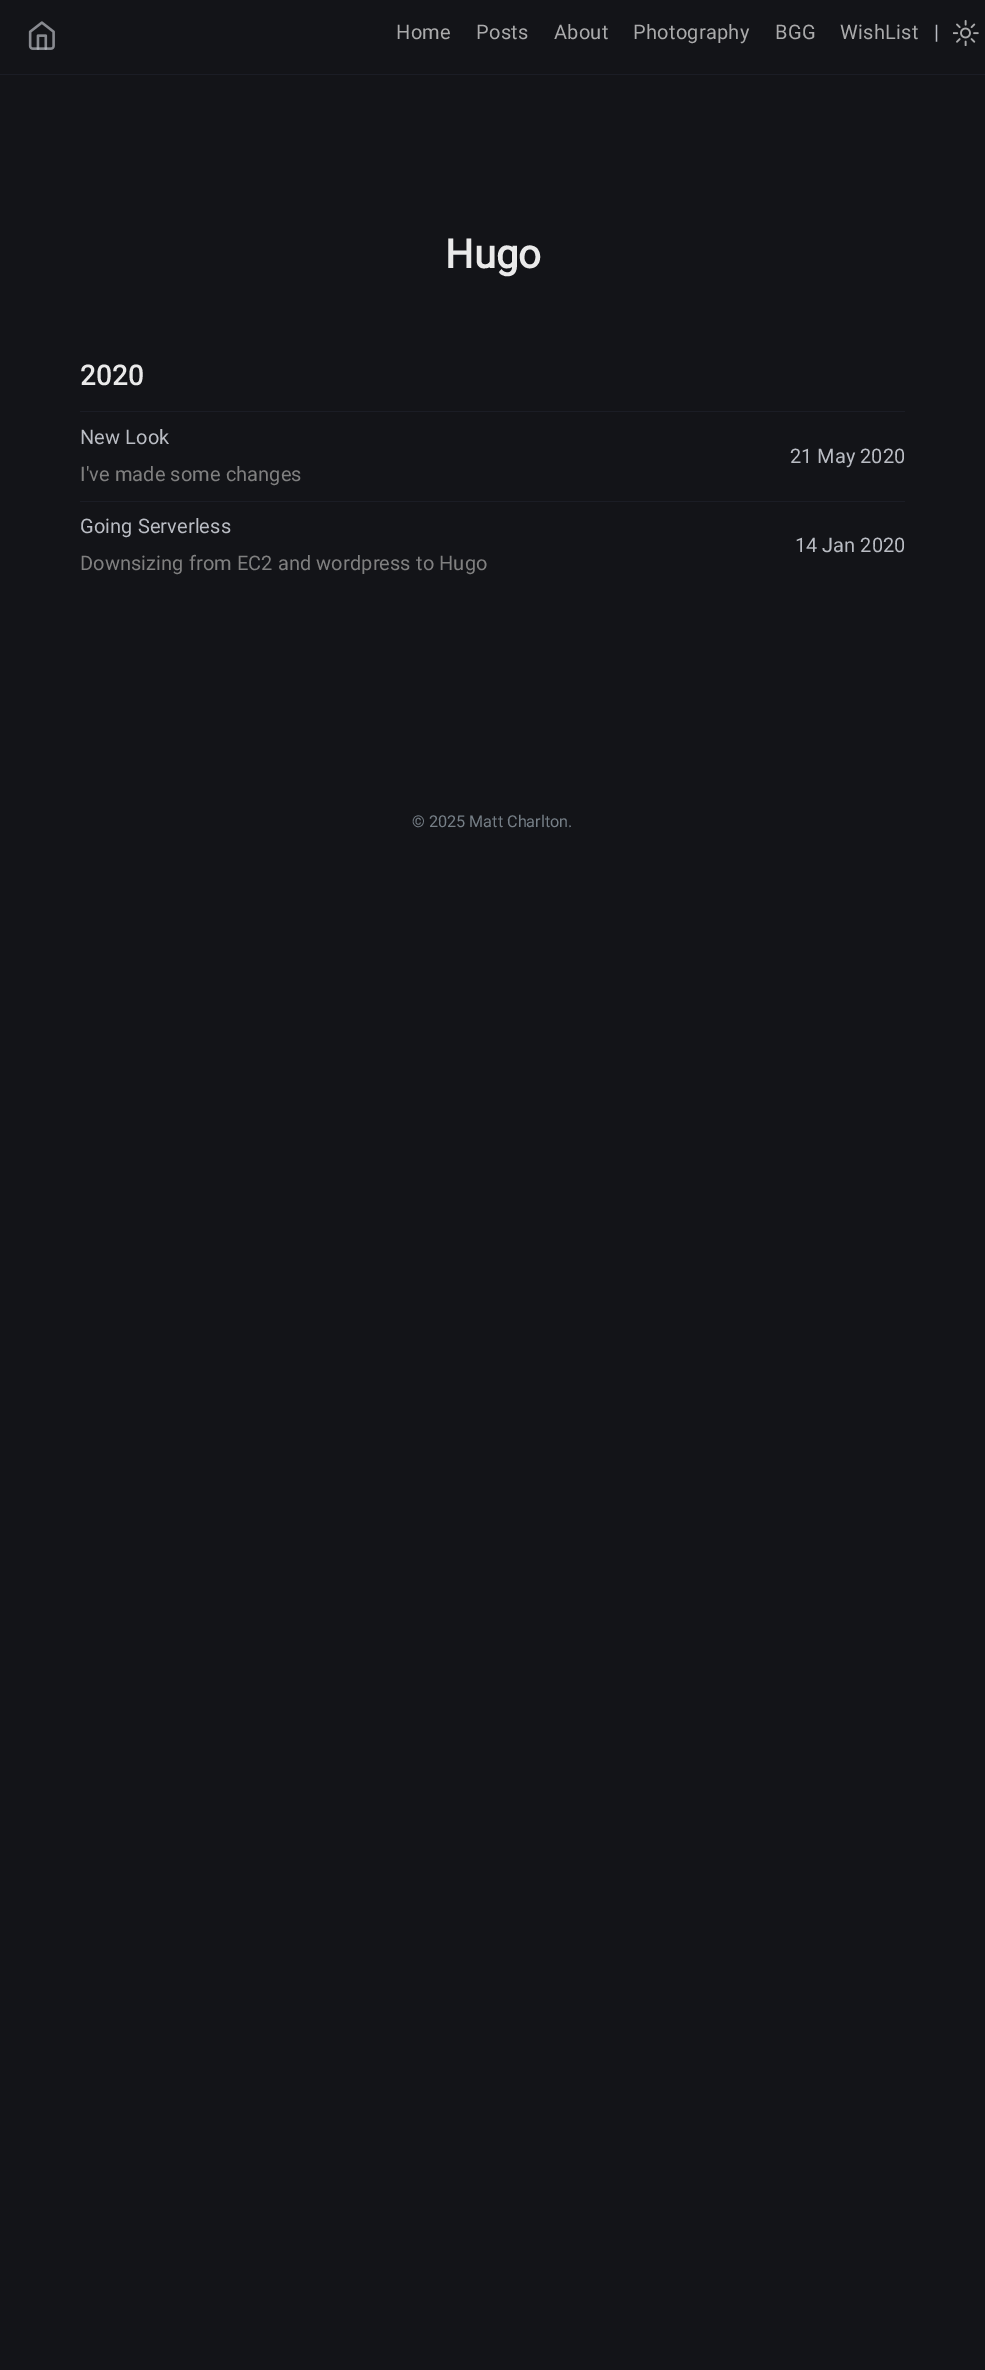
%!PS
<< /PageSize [985 2370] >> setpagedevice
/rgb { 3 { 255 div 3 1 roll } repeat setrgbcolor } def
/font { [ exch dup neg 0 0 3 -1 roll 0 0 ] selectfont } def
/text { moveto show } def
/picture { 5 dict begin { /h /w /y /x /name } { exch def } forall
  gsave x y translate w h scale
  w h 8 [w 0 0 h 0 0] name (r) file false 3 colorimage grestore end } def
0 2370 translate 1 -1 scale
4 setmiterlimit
19 20 24 rgb
0 0 985 2370 rectfill
27 29 37 rgb
0 74 985 1 rectfill
(img_01.rgb) 28 21 27 29 picture
(img_02.rgb) 953 20 26 26 picture
80 411 825 1 rectfill
80 501 825 1 rectfill
/Roboto-Regular 20 font
170 170 171 rgb
396 39 moveto 0.25 0 (Home) ashow
476 39 moveto 0.25 0 (Posts) ashow
554 39 moveto 0.25 0 (About) ashow
633 39 moveto 0.25 0 (Photography) ashow
775 39 moveto 0.25 0 (BGG) ashow
840 39 moveto 0.25 0 (WishList) ashow
186 189 196 rgb
(|) 934 39 text
/Roboto-Bold 40 font
234 234 234 rgb
(Hugo) 445 268 text
/Roboto-Bold 27.5 font
80 385 moveto 0.5 0 (2020) ashow
/Roboto-Regular 20 font
186 189 196 rgb
80 444 moveto 0.1 0 (New Look) ashow
128 128 128 rgb
80 481 moveto 0.1 0 (I've made some changes) ashow
186 189 196 rgb
(21 May 2020) 790 463 text
80 533 moveto 0.1 0 (Going Serverless) ashow
128 128 128 rgb
80 570 moveto 0.1 0 (Downsizing from EC2 and wordpress to Hugo) ashow
186 189 196 rgb
(14 Jan 2020) 795 552 text
/Roboto-Regular 16.25 font
118 127 135 rgb
(© 2025 Matt Charlton.) 412 827 text
showpage
